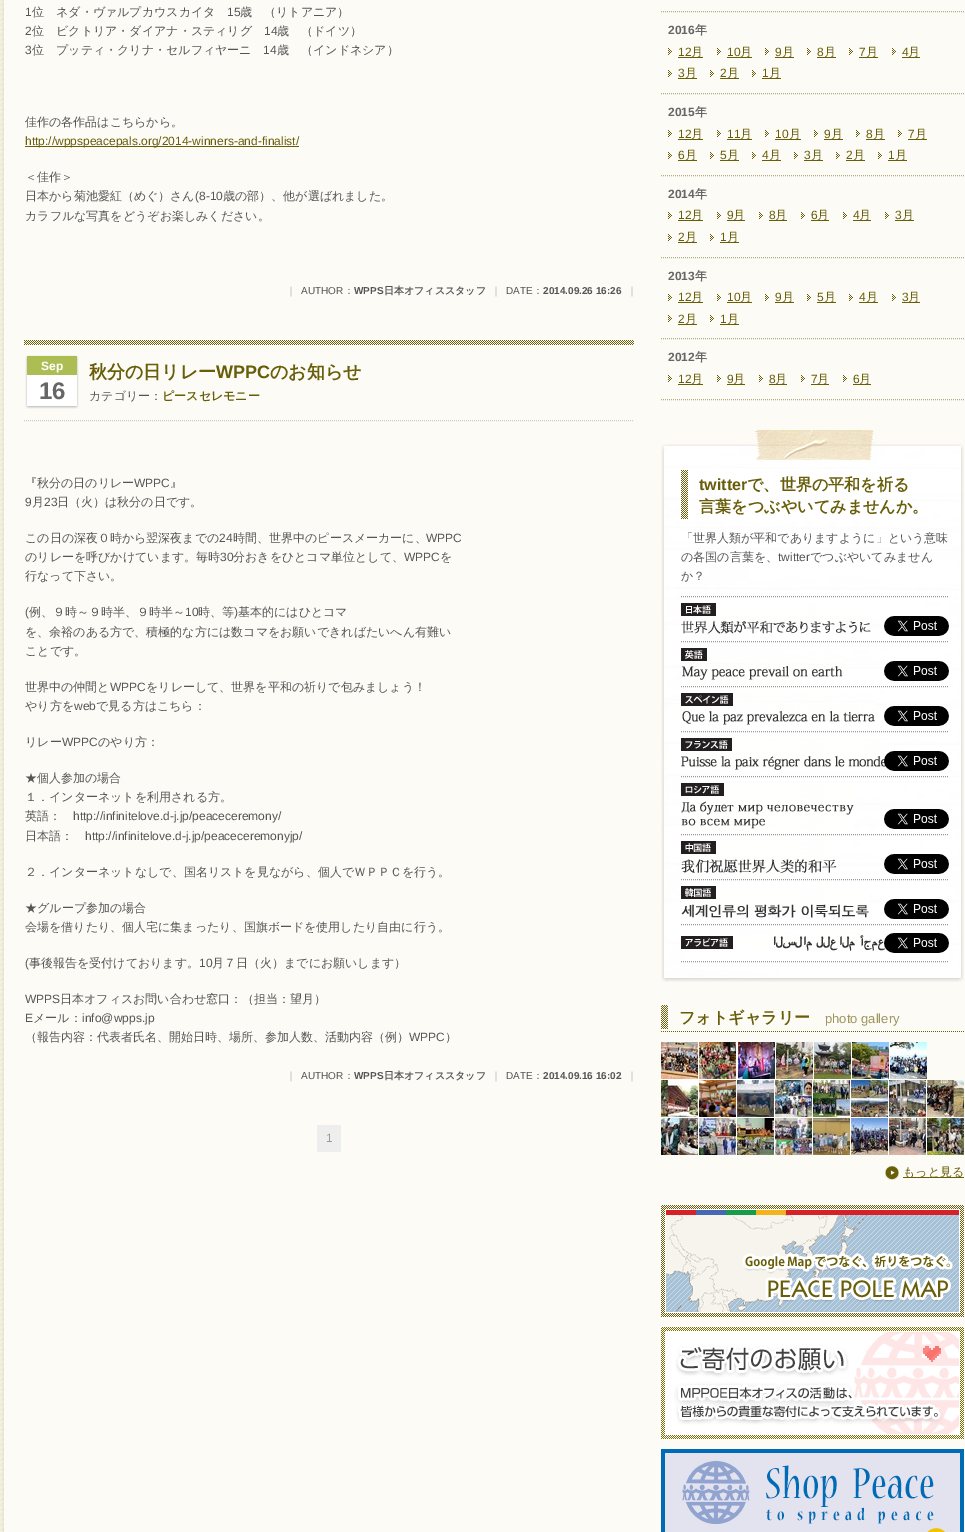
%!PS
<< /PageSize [965 1532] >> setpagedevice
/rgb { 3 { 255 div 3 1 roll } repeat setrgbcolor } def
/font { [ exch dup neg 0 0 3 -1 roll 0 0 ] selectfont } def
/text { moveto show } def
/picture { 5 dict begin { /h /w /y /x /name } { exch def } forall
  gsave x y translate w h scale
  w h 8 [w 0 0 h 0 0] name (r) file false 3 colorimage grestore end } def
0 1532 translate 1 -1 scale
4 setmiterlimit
255 255 255 rgb
0 0 965 1532 rectfill
(img_01.rgb) 0 0 965 1532 picture
104 93 9 rgb
25 146 274 1 rectfill
(img_02.rgb) 24 340 610 5 picture
204 204 204 rgb
[1 1] 0 setdash
24 420.5 moveto 610 0 rlineto stroke
(img_03.rgb) 25 355 54 54 picture
238 238 238 rgb
317 1125 24 27 rectfill
179 172 128 rgb
661 11.5 moveto 303 0 rlineto stroke
661 93.5 moveto 303 0 rlineto stroke
(img_04.rgb) 668 48 4 7 picture
104 93 9 rgb
678 57 25 1 rectfill
(img_04.rgb) 717 48 4 7 picture
727 57 25 1 rectfill
(img_04.rgb) 765 48 4 7 picture
775 57 19 1 rectfill
(img_04.rgb) 807 48 4 7 picture
817 57 19 1 rectfill
(img_04.rgb) 849 48 4 7 picture
859 57 19 1 rectfill
(img_04.rgb) 892 48 4 7 picture
902 57 18 1 rectfill
(img_04.rgb) 668 70 4 7 picture
678 78 19 1 rectfill
(img_04.rgb) 710 70 4 7 picture
720 78 19 1 rectfill
(img_04.rgb) 752 70 4 7 picture
762 78 19 1 rectfill
179 172 128 rgb
661 175.5 moveto 303 0 rlineto stroke
(img_04.rgb) 668 130 4 7 picture
104 93 9 rgb
678 139 25 1 rectfill
(img_04.rgb) 717 130 4 7 picture
727 139 25 1 rectfill
(img_04.rgb) 765 130 4 7 picture
775 139 26 1 rectfill
(img_04.rgb) 814 130 4 7 picture
824 139 19 1 rectfill
(img_04.rgb) 856 130 4 7 picture
866 139 19 1 rectfill
(img_04.rgb) 898 130 4 7 picture
908 139 19 1 rectfill
(img_04.rgb) 668 152 4 7 picture
678 160 19 1 rectfill
(img_04.rgb) 710 152 4 7 picture
720 160 19 1 rectfill
(img_04.rgb) 752 152 4 7 picture
762 160 19 1 rectfill
(img_04.rgb) 794 152 4 7 picture
804 160 19 1 rectfill
(img_04.rgb) 836 152 4 7 picture
846 160 19 1 rectfill
(img_04.rgb) 878 152 4 7 picture
888 160 19 1 rectfill
179 172 128 rgb
661 257.5 moveto 303 0 rlineto stroke
(img_04.rgb) 668 212 4 7 picture
104 93 9 rgb
678 220 25 1 rectfill
(img_04.rgb) 717 212 4 7 picture
727 220 18 1 rectfill
(img_04.rgb) 759 212 4 7 picture
769 220 18 1 rectfill
(img_04.rgb) 801 212 4 7 picture
811 220 18 1 rectfill
(img_04.rgb) 843 212 4 7 picture
853 220 18 1 rectfill
(img_04.rgb) 885 212 4 7 picture
895 220 19 1 rectfill
(img_04.rgb) 668 234 4 7 picture
678 242 19 1 rectfill
(img_04.rgb) 710 234 4 7 picture
720 242 19 1 rectfill
179 172 128 rgb
661 338.5 moveto 303 0 rlineto stroke
(img_04.rgb) 668 294 4 7 picture
104 93 9 rgb
678 302 25 1 rectfill
(img_04.rgb) 717 294 4 7 picture
727 302 25 1 rectfill
(img_04.rgb) 765 294 4 7 picture
775 302 19 1 rectfill
(img_04.rgb) 807 294 4 7 picture
817 302 19 1 rectfill
(img_04.rgb) 849 294 4 7 picture
859 302 19 1 rectfill
(img_04.rgb) 892 294 4 7 picture
902 302 18 1 rectfill
(img_04.rgb) 668 315 4 7 picture
678 324 19 1 rectfill
(img_04.rgb) 710 315 4 7 picture
720 324 19 1 rectfill
179 172 128 rgb
661 399.5 moveto 303 0 rlineto stroke
(img_04.rgb) 668 375 4 7 picture
104 93 9 rgb
678 384 25 1 rectfill
(img_04.rgb) 717 375 4 7 picture
727 384 18 1 rectfill
(img_04.rgb) 759 375 4 7 picture
769 384 18 1 rectfill
(img_04.rgb) 801 375 4 7 picture
811 384 18 1 rectfill
(img_04.rgb) 843 375 4 7 picture
853 384 18 1 rectfill
(img_05.rgb) 661 977 303 5 picture
(img_06.rgb) 661 430 303 547 picture
(img_07.rgb) 681 470 7 49 picture
153 153 153 rgb
681 596.5 moveto 268 0 rlineto stroke
681 641.5 moveto 268 0 rlineto stroke
(img_08.rgb) 681 603 190 31 picture
(img_09.rgb) 884 616 65 20 picture
681 686.5 moveto 268 0 rlineto stroke
(img_10.rgb) 681 648 162 32 picture
(img_11.rgb) 884 661 65 20 picture
681 731.5 moveto 268 0 rlineto stroke
(img_12.rgb) 681 693 194 32 picture
(img_13.rgb) 884 706 65 20 picture
681 776.5 moveto 268 0 rlineto stroke
(img_14.rgb) 681 738 206 32 picture
(img_15.rgb) 884 751 65 20 picture
681 834.5 moveto 268 0 rlineto stroke
(img_16.rgb) 681 783 173 46 picture
(img_17.rgb) 884 809 65 20 picture
681 879.5 moveto 268 0 rlineto stroke
(img_18.rgb) 681 841 156 32 picture
(img_19.rgb) 884 854 65 20 picture
681 924.5 moveto 268 0 rlineto stroke
(img_20.rgb) 681 886 188 32 picture
(img_21.rgb) 884 899 65 20 picture
681 961.5 moveto 268 0 rlineto stroke
(img_22.rgb) 681 935 205 16 picture
(img_23.rgb) 884 933 65 20 picture
(img_24.rgb) 661 1005 303 27 picture
(img_25.rgb) 661 1042 37 37 picture
(img_26.rgb) 699 1042 37 37 picture
(img_27.rgb) 738 1042 37 37 picture
(img_28.rgb) 776 1042 37 37 picture
(img_29.rgb) 814 1042 37 37 picture
(img_30.rgb) 852 1042 37 37 picture
(img_31.rgb) 890 1042 37 37 picture
(img_32.rgb) 661 1080 37 37 picture
(img_33.rgb) 699 1080 37 37 picture
(img_34.rgb) 737 1080 37 37 picture
(img_35.rgb) 775 1080 37 37 picture
(img_36.rgb) 813 1080 37 37 picture
(img_37.rgb) 851 1080 37 37 picture
(img_38.rgb) 889 1080 37 37 picture
(img_39.rgb) 927 1080 37 37 picture
(img_40.rgb) 661 1118 37 37 picture
(img_41.rgb) 699 1118 37 37 picture
(img_42.rgb) 737 1118 37 37 picture
(img_43.rgb) 775 1118 37 37 picture
(img_44.rgb) 813 1118 37 37 picture
(img_45.rgb) 851 1118 37 37 picture
(img_46.rgb) 889 1118 37 37 picture
(img_47.rgb) 927 1118 37 37 picture
(img_48.rgb) 885 1166 14 14 picture
104 93 9 rgb
903 1177 61 1 rectfill
(img_49.rgb) 661 1205 303 112 picture
(img_50.rgb) 661 1327 303 112 picture
(img_51.rgb) 661 1449 303 83 picture
/LiberationSans-Regular 12 font
85 85 85 rgb
(1) 25 16 text
/WenQuanYiZenHei-Medium 12 font
(位　ネダ・ヴァルプカウスカイタ) 32 16 text
/LiberationSans-Regular 12 font
(15) 227 16 text
/WenQuanYiZenHei-Medium 12 font
(歳　（リトアニア）) 240 16 text
/LiberationSans-Regular 12 font
(2) 25 35 text
/WenQuanYiZenHei-Medium 12 font
(位　ビクトリア・ダイアナ・スティリグ) 32 35 text
/LiberationSans-Regular 12 font
(14) 264 35 text
/WenQuanYiZenHei-Medium 12 font
(歳　（ドイツ）) 277 35 text
/LiberationSans-Regular 12 font
(3) 25 54 text
/WenQuanYiZenHei-Medium 12 font
(位　プッティ・クリナ・セルフィヤーニ) 32 54 text
/LiberationSans-Regular 12 font
(14) 263 54 text
/WenQuanYiZenHei-Medium 12 font
(歳　（インドネシア）) 277 54 text
(佳作の各作品はこちらから。) 25 126 text
/LiberationSans-Regular 12 font
104 93 9 rgb
(http://wppspeacepals.org/2014-winners-and-finalist/) 25 145 text
/WenQuanYiZenHei-Medium 12 font
85 85 85 rgb
(＜佳作＞) 25 181 text
(日本から菊池愛紅（めぐ）さん) 25 200 text
/LiberationSans-Regular 12 font
(\(8-10) 195 200 text
/WenQuanYiZenHei-Medium 12 font
(歳の部）、他が選ばれました。) 223 200 text
(カラフルな写真をどうぞお楽しみください。) 25 220 text
/WenQuanYiZenHei-Medium 10 font
153 153 153 rgb
(｜) 286 294 text
/LiberationSans-Regular 10 font
85 85 85 rgb
(AUTHOR) 301 294 text
/WenQuanYiZenHei-Medium 10 font
(：) 344 294 text
/LiberationSans-Bold 10 font
(WPPS) 354 294 text
/WenQuanYiZenHei-Bold 10 font
(日本オフィススタッフ) 384 294 text
/WenQuanYiZenHei-Medium 10 font
153 153 153 rgb
(｜) 491 294 text
/LiberationSans-Regular 10 font
85 85 85 rgb
(DATE) 506 294 text
/WenQuanYiZenHei-Medium 10 font
(：) 533 294 text
/LiberationSans-Bold 10 font
(2014.09.26 16:26) 543 294 text
/WenQuanYiZenHei-Medium 10 font
153 153 153 rgb
(｜) 627 294 text
/LiberationSans-Bold 12 font
255 255 255 rgb
(Sep) 41 370 text
/LiberationSans-Bold 24 font
102 102 102 rgb
(16) 39 399 text
/WenQuanYiZenHei-Bold 18 font
104 93 9 rgb
(秋分の日リレー) 89 378 text
/LiberationSans-Bold 18 font
(WPPC) 216 378 text
/WenQuanYiZenHei-Bold 18 font
(のお知らせ) 270 378 text
/WenQuanYiZenHei-Medium 12 font
85 85 85 rgb
(カテゴリー：) 89 400 text
/WenQuanYiZenHei-Bold 12 font
104 93 9 rgb
(ピースセレモニー) 162 400 text
/WenQuanYiZenHei-Medium 12 font
85 85 85 rgb
(『秋分の日のリレー) 25 487 text
/LiberationSans-Regular 12 font
(WPPC) 134 487 text
/WenQuanYiZenHei-Medium 12 font
(』) 170 487 text
/LiberationSans-Regular 12 font
(9) 25 506 text
/WenQuanYiZenHei-Medium 12 font
(月) 32 506 text
/LiberationSans-Regular 12 font
(23) 44 506 text
/WenQuanYiZenHei-Medium 12 font
(日（火）は秋分の日です。) 57 506 text
(この日の深夜０時から翌深夜までの) 25 542 text
/LiberationSans-Regular 12 font
(24) 219 542 text
/WenQuanYiZenHei-Medium 12 font
(時間、世界中のピースメーカーに、) 233 542 text
/LiberationSans-Regular 12 font
(WPPC) 426 542 text
/WenQuanYiZenHei-Medium 12 font
(のリレーを呼びかけています。毎時) 25 561 text
/LiberationSans-Regular 12 font
(30) 220 561 text
/WenQuanYiZenHei-Medium 12 font
(分おきをひとコマ単位として、) 233 561 text
/LiberationSans-Regular 12 font
(WPPC) 404 561 text
/WenQuanYiZenHei-Medium 12 font
(を) 440 561 text
(行なって下さい。) 25 580 text
/LiberationSans-Regular 12 font
(\() 25 616 text
/WenQuanYiZenHei-Medium 12 font
(例、９時～９時半、９時半～) 29 616 text
/LiberationSans-Regular 12 font
(10) 185 616 text
/WenQuanYiZenHei-Medium 12 font
(時、等) 198 616 text
/LiberationSans-Regular 12 font
(\)) 234 616 text
/WenQuanYiZenHei-Medium 12 font
(基本的にはひとコマ) 238 616 text
(を、余裕のある方で、積極的な方には数コマをお願いできればたいへん有難い) 25 636 text
(ことです。) 25 655 text
(世界中の仲間と) 25 691 text
/LiberationSans-Regular 12 font
(WPPC) 110 691 text
/WenQuanYiZenHei-Medium 12 font
(をリレーして、世界を平和の祈りで包みましょう！) 146 691 text
(やり方を) 25 710 text
/LiberationSans-Regular 12 font
(web) 74 710 text
/WenQuanYiZenHei-Medium 12 font
(で見る方はこちら：) 96 710 text
(リレー) 25 746 text
/LiberationSans-Regular 12 font
(WPPC) 62 746 text
/WenQuanYiZenHei-Medium 12 font
(のやり方：) 98 746 text
(★個人参加の場合) 25 782 text
(１．インターネットを利用される方。) 25 801 text
(英語：) 25 820 text
/LiberationSans-Regular 12 font
(http://infinitelove.d-j.jp/peaceceremony/) 73 820 text
/WenQuanYiZenHei-Medium 12 font
(日本語：) 25 840 text
/LiberationSans-Regular 12 font
(http://infinitelove.d-j.jp/peaceceremonyjp/) 85 840 text
/WenQuanYiZenHei-Medium 12 font
(２．インターネットなしで、国名リストを見ながら、個人でＷＰＰＣを行う。) 25 876 text
(★グループ参加の場合) 25 912 text
(会場を借りたり、個人宅に集まったり、国旗ボードを使用したり自由に行う。) 25 931 text
/LiberationSans-Regular 12 font
(\() 25 967 text
/WenQuanYiZenHei-Medium 12 font
(事後報告を受付けております。) 29 967 text
/LiberationSans-Regular 12 font
(10) 199 967 text
/WenQuanYiZenHei-Medium 12 font
(月７日（火）までにお願いします）) 212 967 text
/LiberationSans-Regular 12 font
(WPPS) 25 1003 text
/WenQuanYiZenHei-Medium 12 font
(日本オフィスお問い合わせ窓口：（担当：望月）) 60 1003 text
/LiberationSans-Regular 12 font
(E) 25 1022 text
/WenQuanYiZenHei-Medium 12 font
(メール：) 33 1022 text
/LiberationSans-Regular 12 font
(info@wpps.jp) 82 1022 text
/WenQuanYiZenHei-Medium 12 font
(（報告内容：代表者氏名、開始日時、場所、参加人数、活動内容（例）) 25 1041 text
/LiberationSans-Regular 12 font
(WPPC) 409 1041 text
/WenQuanYiZenHei-Medium 12 font
(）) 445 1041 text
/WenQuanYiZenHei-Medium 10 font
153 153 153 rgb
(｜) 286 1079 text
/LiberationSans-Regular 10 font
85 85 85 rgb
(AUTHOR) 301 1079 text
/WenQuanYiZenHei-Medium 10 font
(：) 344 1079 text
/LiberationSans-Bold 10 font
(WPPS) 354 1079 text
/WenQuanYiZenHei-Bold 10 font
(日本オフィススタッフ) 384 1079 text
/WenQuanYiZenHei-Medium 10 font
153 153 153 rgb
(｜) 491 1079 text
/LiberationSans-Regular 10 font
85 85 85 rgb
(DATE) 506 1079 text
/WenQuanYiZenHei-Medium 10 font
(：) 533 1079 text
/LiberationSans-Bold 10 font
(2014.09.16 16:02) 543 1079 text
/WenQuanYiZenHei-Medium 10 font
153 153 153 rgb
(｜) 627 1079 text
/LiberationSans-Regular 12 font
(1) 326 1142 text
/LiberationSans-Bold 12 font
102 102 102 rgb
(2016) 668 34 text
/WenQuanYiZenHei-Bold 12 font
(年) 695 34 text
/LiberationSans-Regular 12 font
104 93 9 rgb
(12) 678 56 text
/WenQuanYiZenHei-Medium 12 font
(月) 691 56 text
/LiberationSans-Regular 12 font
(10) 727 56 text
/WenQuanYiZenHei-Medium 12 font
(月) 740 56 text
/LiberationSans-Regular 12 font
(9) 775 56 text
/WenQuanYiZenHei-Medium 12 font
(月) 782 56 text
/LiberationSans-Regular 12 font
(8) 817 56 text
/WenQuanYiZenHei-Medium 12 font
(月) 824 56 text
/LiberationSans-Regular 12 font
(7) 859 56 text
/WenQuanYiZenHei-Medium 12 font
(月) 866 56 text
/LiberationSans-Regular 12 font
(4) 902 56 text
/WenQuanYiZenHei-Medium 12 font
(月) 908 56 text
/LiberationSans-Regular 12 font
(3) 678 77 text
/WenQuanYiZenHei-Medium 12 font
(月) 685 77 text
/LiberationSans-Regular 12 font
(2) 720 77 text
/WenQuanYiZenHei-Medium 12 font
(月) 727 77 text
/LiberationSans-Regular 12 font
(1) 762 77 text
/WenQuanYiZenHei-Medium 12 font
(月) 769 77 text
/LiberationSans-Bold 12 font
102 102 102 rgb
(2015) 668 116 text
/WenQuanYiZenHei-Bold 12 font
(年) 695 116 text
/LiberationSans-Regular 12 font
104 93 9 rgb
(12) 678 138 text
/WenQuanYiZenHei-Medium 12 font
(月) 691 138 text
/LiberationSans-Regular 12 font
(11) 727 138 text
/WenQuanYiZenHei-Medium 12 font
(月) 740 138 text
/LiberationSans-Regular 12 font
(10) 775 138 text
/WenQuanYiZenHei-Medium 12 font
(月) 789 138 text
/LiberationSans-Regular 12 font
(9) 824 138 text
/WenQuanYiZenHei-Medium 12 font
(月) 831 138 text
/LiberationSans-Regular 12 font
(8) 866 138 text
/WenQuanYiZenHei-Medium 12 font
(月) 873 138 text
/LiberationSans-Regular 12 font
(7) 908 138 text
/WenQuanYiZenHei-Medium 12 font
(月) 915 138 text
/LiberationSans-Regular 12 font
(6) 678 159 text
/WenQuanYiZenHei-Medium 12 font
(月) 685 159 text
/LiberationSans-Regular 12 font
(5) 720 159 text
/WenQuanYiZenHei-Medium 12 font
(月) 727 159 text
/LiberationSans-Regular 12 font
(4) 762 159 text
/WenQuanYiZenHei-Medium 12 font
(月) 769 159 text
/LiberationSans-Regular 12 font
(3) 804 159 text
/WenQuanYiZenHei-Medium 12 font
(月) 811 159 text
/LiberationSans-Regular 12 font
(2) 846 159 text
/WenQuanYiZenHei-Medium 12 font
(月) 853 159 text
/LiberationSans-Regular 12 font
(1) 888 159 text
/WenQuanYiZenHei-Medium 12 font
(月) 895 159 text
/LiberationSans-Bold 12 font
102 102 102 rgb
(2014) 668 198 text
/WenQuanYiZenHei-Bold 12 font
(年) 695 198 text
/LiberationSans-Regular 12 font
104 93 9 rgb
(12) 678 219 text
/WenQuanYiZenHei-Medium 12 font
(月) 691 219 text
/LiberationSans-Regular 12 font
(9) 727 219 text
/WenQuanYiZenHei-Medium 12 font
(月) 733 219 text
/LiberationSans-Regular 12 font
(8) 769 219 text
/WenQuanYiZenHei-Medium 12 font
(月) 775 219 text
/LiberationSans-Regular 12 font
(6) 811 219 text
/WenQuanYiZenHei-Medium 12 font
(月) 817 219 text
/LiberationSans-Regular 12 font
(4) 853 219 text
/WenQuanYiZenHei-Medium 12 font
(月) 859 219 text
/LiberationSans-Regular 12 font
(3) 895 219 text
/WenQuanYiZenHei-Medium 12 font
(月) 902 219 text
/LiberationSans-Regular 12 font
(2) 678 241 text
/WenQuanYiZenHei-Medium 12 font
(月) 685 241 text
/LiberationSans-Regular 12 font
(1) 720 241 text
/WenQuanYiZenHei-Medium 12 font
(月) 727 241 text
/LiberationSans-Bold 12 font
102 102 102 rgb
(2013) 668 280 text
/WenQuanYiZenHei-Bold 12 font
(年) 695 280 text
/LiberationSans-Regular 12 font
104 93 9 rgb
(12) 678 301 text
/WenQuanYiZenHei-Medium 12 font
(月) 691 301 text
/LiberationSans-Regular 12 font
(10) 727 301 text
/WenQuanYiZenHei-Medium 12 font
(月) 740 301 text
/LiberationSans-Regular 12 font
(9) 775 301 text
/WenQuanYiZenHei-Medium 12 font
(月) 782 301 text
/LiberationSans-Regular 12 font
(5) 817 301 text
/WenQuanYiZenHei-Medium 12 font
(月) 824 301 text
/LiberationSans-Regular 12 font
(4) 859 301 text
/WenQuanYiZenHei-Medium 12 font
(月) 866 301 text
/LiberationSans-Regular 12 font
(3) 902 301 text
/WenQuanYiZenHei-Medium 12 font
(月) 908 301 text
/LiberationSans-Regular 12 font
(2) 678 323 text
/WenQuanYiZenHei-Medium 12 font
(月) 685 323 text
/LiberationSans-Regular 12 font
(1) 720 323 text
/WenQuanYiZenHei-Medium 12 font
(月) 727 323 text
/LiberationSans-Bold 12 font
102 102 102 rgb
(2012) 668 361 text
/WenQuanYiZenHei-Bold 12 font
(年) 695 361 text
/LiberationSans-Regular 12 font
104 93 9 rgb
(12) 678 383 text
/WenQuanYiZenHei-Medium 12 font
(月) 691 383 text
/LiberationSans-Regular 12 font
(9) 727 383 text
/WenQuanYiZenHei-Medium 12 font
(月) 733 383 text
/LiberationSans-Regular 12 font
(8) 769 383 text
/WenQuanYiZenHei-Medium 12 font
(月) 775 383 text
/LiberationSans-Regular 12 font
(7) 811 383 text
/WenQuanYiZenHei-Medium 12 font
(月) 817 383 text
/LiberationSans-Regular 12 font
(6) 853 383 text
/WenQuanYiZenHei-Medium 12 font
(月) 859 383 text
/LiberationSans-Bold 16.1 font
(twitter) 699 490 text
/WenQuanYiZenHei-Bold 16.1 font
(で、世界の平和を祈る) 747 490 text
(言葉をつぶやいてみませんか。) 699 512 text
/WenQuanYiZenHei-Medium 12 font
85 85 85 rgb
(「世界人類が平和でありますように」という意味) 681 542 text
(の各国の言葉を、) 681 561 text
/LiberationSans-Regular 12 font
(twitter) 778 561 text
/WenQuanYiZenHei-Medium 12 font
(でつぶやいてみません) 810 561 text
(か？) 681 580 text
/WenQuanYiZenHei-Bold 16.1 font
104 93 9 rgb
(フォトギャラリー) 679 1023 text
/LiberationSans-Regular 13 font
157 149 92 rgb
(photo gallery) 825 1023 text
/WenQuanYiZenHei-Medium 12 font
104 93 9 rgb
(もっと見る) 903 1176 text
showpage
